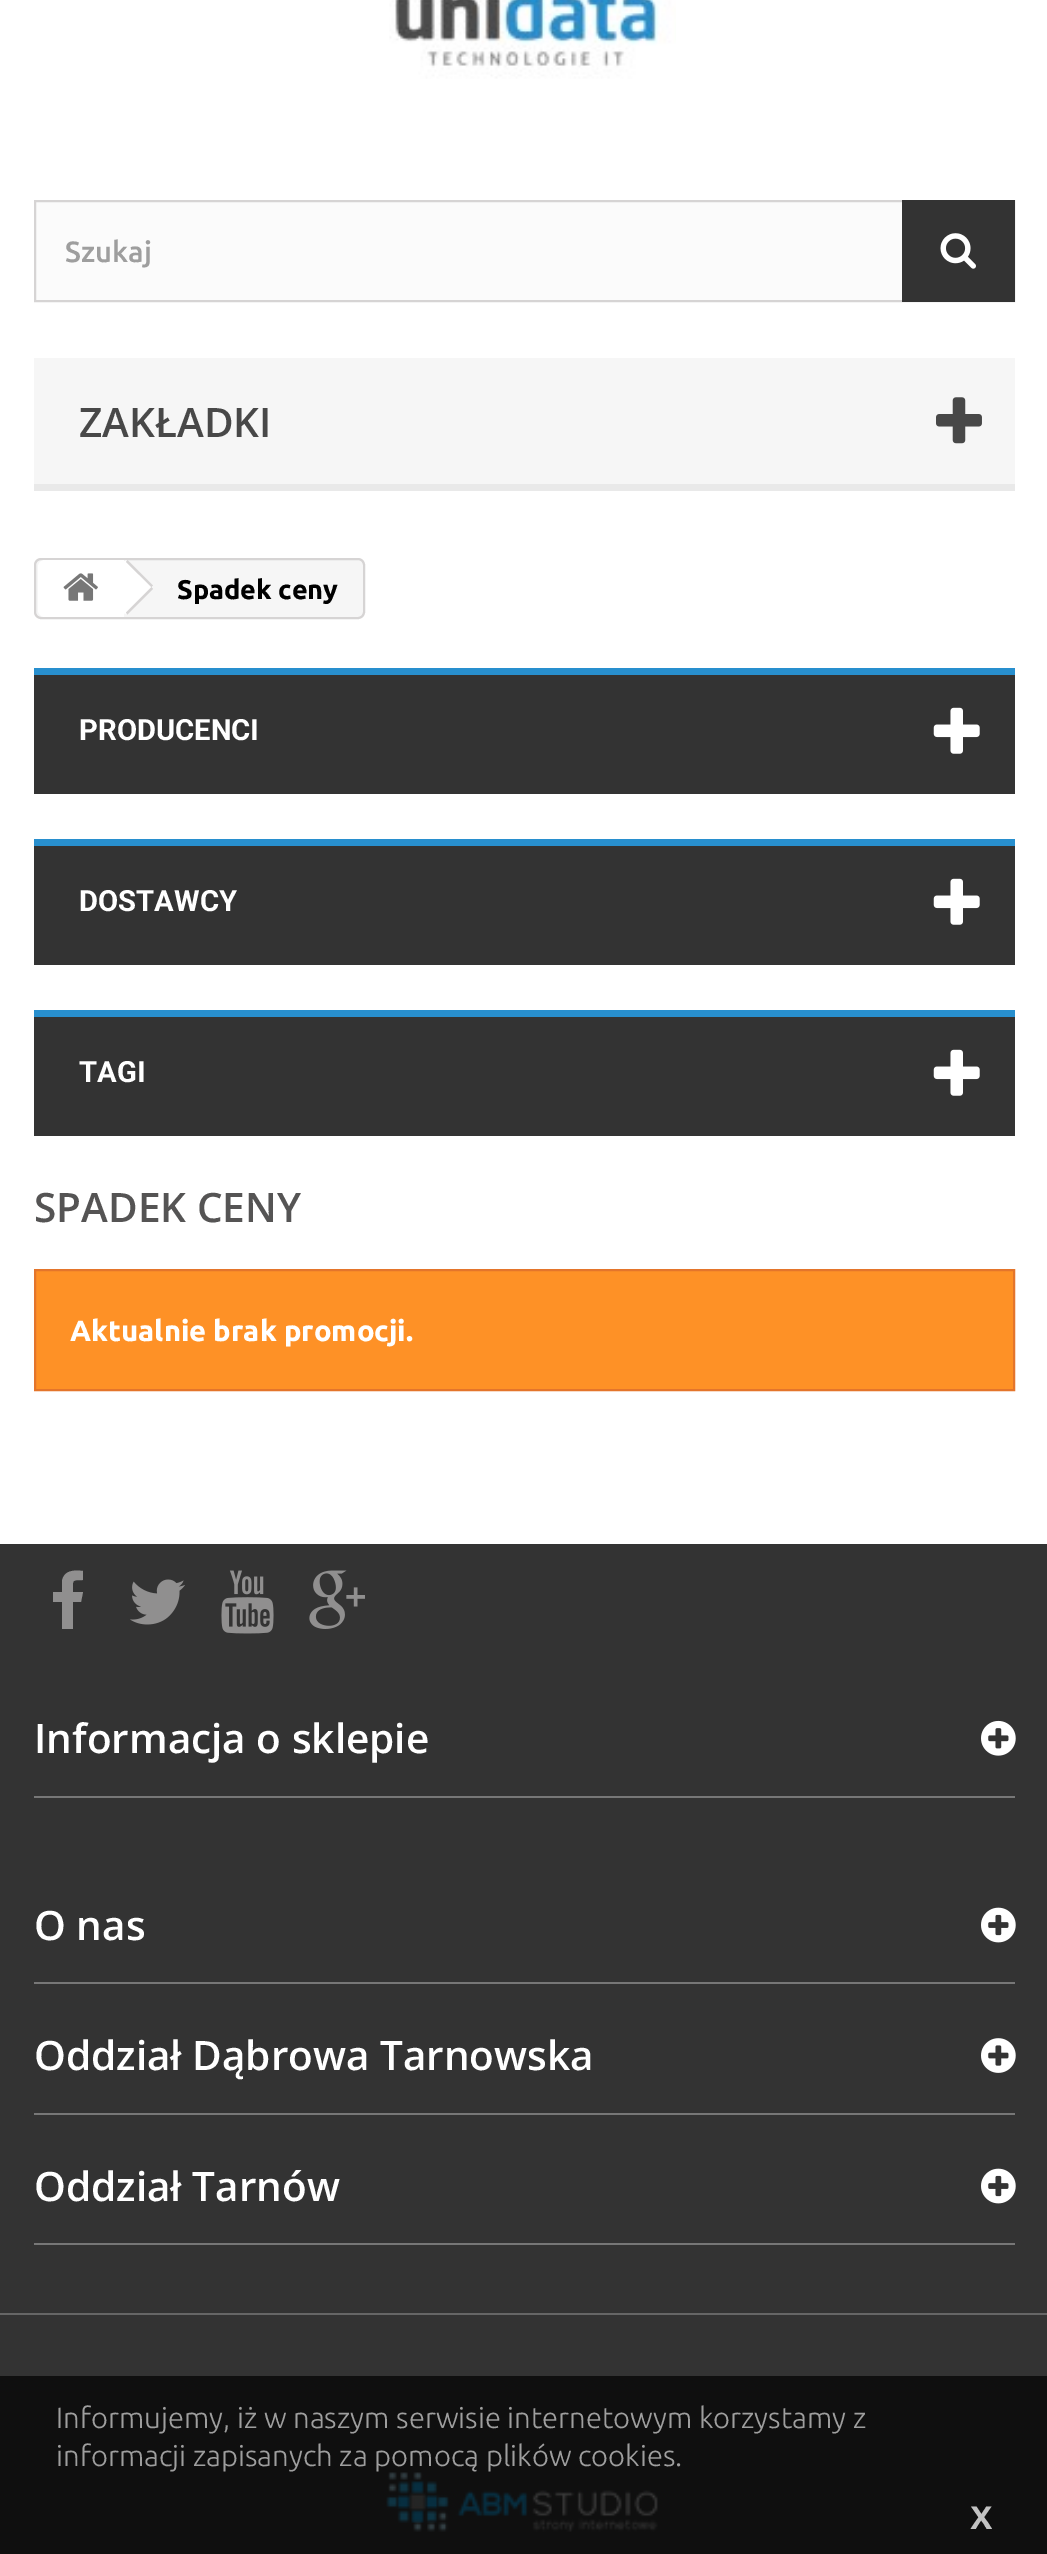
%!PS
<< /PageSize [1047 2554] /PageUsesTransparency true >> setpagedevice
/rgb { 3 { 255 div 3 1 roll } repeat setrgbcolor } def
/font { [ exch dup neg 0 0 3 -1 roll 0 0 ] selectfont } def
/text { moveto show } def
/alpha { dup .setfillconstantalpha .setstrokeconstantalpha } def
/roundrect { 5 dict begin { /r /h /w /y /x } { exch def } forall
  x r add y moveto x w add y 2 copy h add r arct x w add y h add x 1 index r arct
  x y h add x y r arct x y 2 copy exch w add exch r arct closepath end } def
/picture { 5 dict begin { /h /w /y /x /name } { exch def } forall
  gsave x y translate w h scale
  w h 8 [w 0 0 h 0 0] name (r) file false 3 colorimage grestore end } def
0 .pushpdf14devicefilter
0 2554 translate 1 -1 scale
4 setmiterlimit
255 255 255 rgb
0 0 1047 2554 rectfill
(img_01.rgb) 389 0 287 79 picture
251 251 251 rgb
36 202 866 98 rectfill
214 212 212 rgb
2 setlinewidth
35 201 979 100 rectstroke
51 51 51 rgb
902 200 113 102 rectfill
(img_02.rgb) 940 233 36 36 picture
246 246 246 rgb
34 358 981 126 rectfill
233 233 233 rgb
34 484 981 7 rectfill
(img_03.rgb) 936 397 46 47 picture
246 246 246 rgb
35 559 329 59 6 roundrect gsave fill grestore
214 212 212 rgb
stroke
255 255 255 rgb
45 560 moveto 79 0 rlineto 0 57 rlineto -79 0 rlineto -4 0 -7 -3 -7 -7 rcurveto 0 -43 rlineto 0 -4 3 -7 7 -7 rcurveto closepath fill
(img_04.rgb) 63 573 35 28 picture
129 562 moveto 22 22 rlineto 2 2 2 5 0 6 rcurveto -22 23 rlineto -2 1 -4 1 -6 0 rcurveto -22 -23 rlineto -2 -1 -2 -4 0 -6 rcurveto 22 -22 rlineto 2 -2 4 -2 6 0 rcurveto closepath fill
214 212 212 rgb
127.5 560 moveto 25.5 25.5 rlineto -1.5 1.5 rlineto -25.5 -25 rlineto closepath 151.5 587 moveto 1.5 2 rlineto -25.5 25.5 rlineto -1.5 -2 rlineto closepath fill
51 51 51 rgb
34 675 981 119 rectfill
40 143 206 rgb
34 668 981 7 rectfill
(img_05.rgb) 933 707 47 47 picture
51 51 51 rgb
34 846 981 119 rectfill
40 143 206 rgb
34 839 981 7 rectfill
(img_05.rgb) 933 878 47 47 picture
51 51 51 rgb
34 1017 981 119 rectfill
40 143 206 rgb
34 1010 981 7 rectfill
(img_05.rgb) 933 1049 47 47 picture
254 145 38 rgb
35 1270 moveto 979 0 rlineto 0 120 rlineto -979 0 rlineto closepath gsave fill grestore
228 117 43 rgb
stroke
51 51 51 rgb
0 1544 1047 1010 rectfill
144 143 143 rgb
83 1571 moveto 0 9 rlineto -12 0 -10 0 -10 12 rcurveto 10 0 rlineto -2 10 rlineto -8 0 rlineto 0 27 rlineto -11 0 rlineto 0 -27 rlineto -9 0 rlineto 0 -10 rlineto 9 0 rlineto 0 -11 rlineto 2 -11 12 -11 21 -10 rcurveto closepath fill
(img_06.rgb) 130 1579 55 46 picture
(img_07.rgb) 221 1570 53 64 picture
(img_08.rgb) 309 1570 56 59 picture
119 119 119 rgb
34 1796 981 2 rectfill
(img_09.rgb) 981 1720 35 36 picture
34 1982 981 2 rectfill
(img_10.rgb) 981 1907 35 36 picture
34 2113 981 2 rectfill
(img_11.rgb) 981 2038 35 35 picture
34 2243 981 2 rectfill
(img_10.rgb) 981 2168 35 36 picture
(img_12.rgb) 386 2472 272 60 picture
0.7 alpha
0 0 0 rgb
0 2376 1047 178 rectfill
1 alpha
102 102 102 rgb
0 2313 1047 2 rectfill
/Ubuntu-Medium 29.25 font
158 158 158 rgb
(Szukaj) 65 262 text
/OpenSans-SemiBold 40.5 font
72 72 72 rgb
(ZAKŁADKI) 79 437 text
/Ubuntu-Bold 27 font
0 0 0 rgb
(Spadek ceny) 177 599 text
/Roboto-Bold 29.25 font
255 255 255 rgb
(PRODUCENCI) 79 740 text
(DOSTAWCY) 79 911 text
(TAGI) 79 1082 text
/OpenSans-SemiBold 40.5 font
85 84 84 rgb
(SPADEK CENY) 34 1222 text
/Ubuntu-Bold 29.25 font
255 255 255 rgb
(Aktualnie brak promocji.) 70 1341 text
/OpenSans-SemiBold 40.5 font
(Informacja o sklepie) 34 1753 text
(O nas) 34 1940 text
(Oddział Dąbrowa Tarnowska) 34 2070 text
(Oddział Tarnów) 34 2201 text
/Ubuntu-Light 29.25 font
158 158 158 rgb
(Informujemy, iż w naszym serwisie internetowym korzystamy z) 56 2428 text
(informacji zapisanych za pomocą plików cookies.) 56 2466 text
/Ubuntu-Medium 43 font
194 194 194 rgb
(x) 970 2529 text
.poppdf14devicefilter showpage
